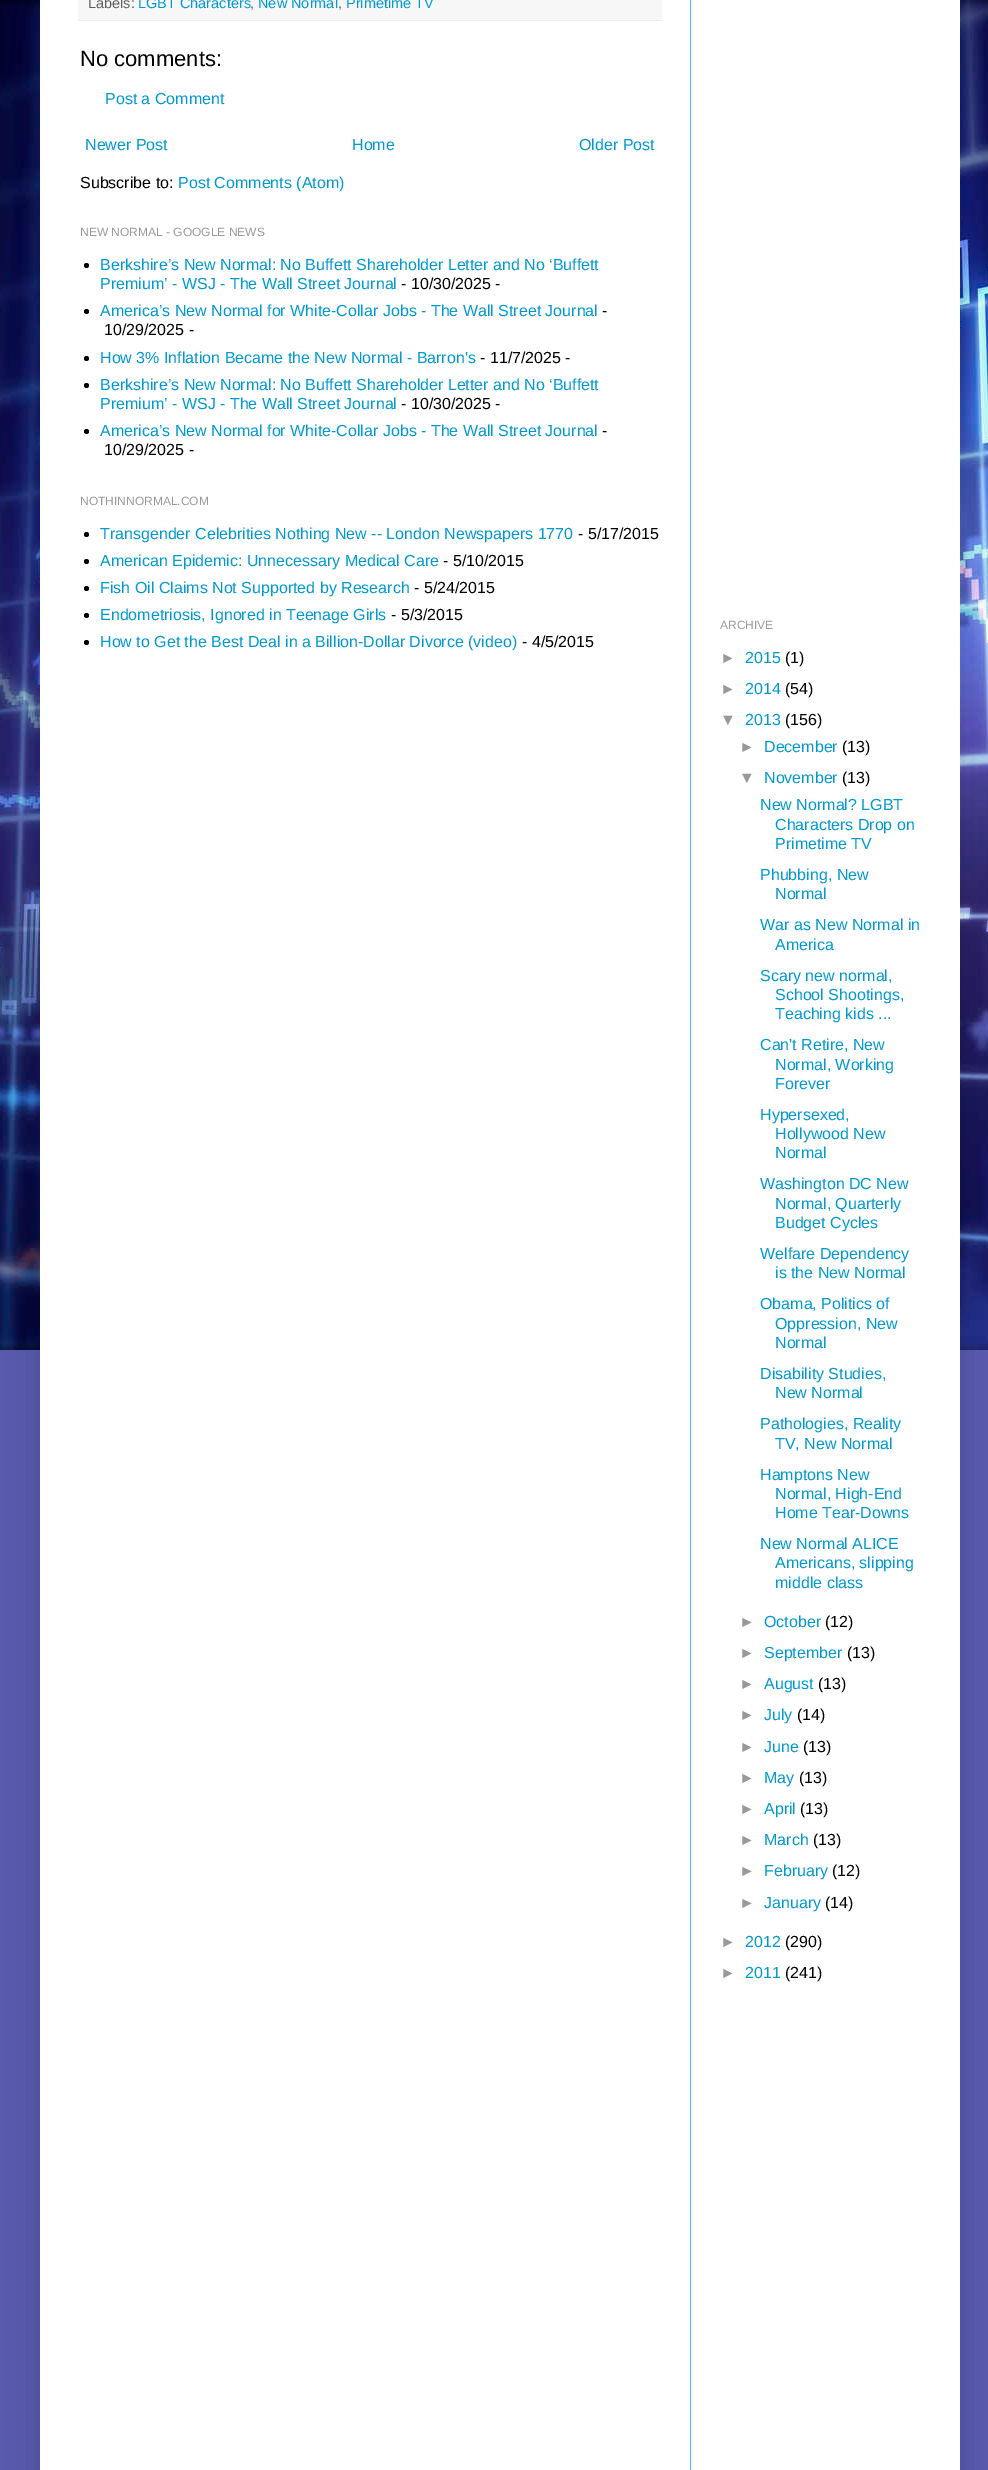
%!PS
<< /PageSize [988 2470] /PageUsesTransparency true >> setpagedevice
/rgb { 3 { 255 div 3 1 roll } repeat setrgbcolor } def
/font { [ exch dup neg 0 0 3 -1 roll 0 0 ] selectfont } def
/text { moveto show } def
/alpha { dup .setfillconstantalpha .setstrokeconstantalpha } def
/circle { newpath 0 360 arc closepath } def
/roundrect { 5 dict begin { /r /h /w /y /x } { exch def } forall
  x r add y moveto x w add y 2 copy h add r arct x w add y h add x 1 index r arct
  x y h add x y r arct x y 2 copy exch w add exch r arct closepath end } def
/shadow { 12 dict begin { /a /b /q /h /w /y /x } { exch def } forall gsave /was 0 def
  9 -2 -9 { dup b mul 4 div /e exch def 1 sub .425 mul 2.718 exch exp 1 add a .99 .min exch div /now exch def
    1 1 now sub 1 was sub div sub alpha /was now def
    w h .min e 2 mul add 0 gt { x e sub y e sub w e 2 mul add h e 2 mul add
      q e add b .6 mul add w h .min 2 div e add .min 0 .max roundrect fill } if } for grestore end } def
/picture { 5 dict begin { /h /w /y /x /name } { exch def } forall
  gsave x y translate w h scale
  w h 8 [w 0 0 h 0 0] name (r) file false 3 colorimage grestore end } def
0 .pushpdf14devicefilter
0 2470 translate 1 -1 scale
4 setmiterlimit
89 89 175 rgb
0 0 988 2470 rectfill
(img_01.rgb) 0 0 988 1350 picture
0 0 0 rgb
40 -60 920 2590 0 20 0.15 shadow
255 255 255 rgb
40 0 920 2470 rectfill
247 247 247 rgb
78 0 584 20 rectfill
236 236 236 rgb
78 20 584 1 rectfill
0 0 0 rgb
86.5 265.5 2.5 circle fill
86.5 311.5 2.5 circle fill
86.5 358.5 2.5 circle fill
86.5 385.5 2.5 circle fill
86.5 431.5 2.5 circle fill
86.5 534.5 2.5 circle fill
86.5 561.5 2.5 circle fill
86.5 588.5 2.5 circle fill
86.5 615.5 2.5 circle fill
86.5 642.5 2.5 circle fill
58 197 248 rgb
690 0 1 2470 rectfill
/LiberationSans-Regular 14.5 font
93 93 93 rgb
(Labels:) 88 8 text
1 153 208 rgb
(LGBT Characters) 138 8 text
93 93 93 rgb
(,) 250 8 text
1 153 208 rgb
(New Normal) 258 8 text
93 93 93 rgb
(,) 338 8 text
1 153 208 rgb
(Primetime TV) 346 8 text
/LiberationSans-Regular 22 font
0 0 0 rgb
(No comments:) 80 66 text
/LiberationSans-Regular 16 font
1 153 208 rgb
(Post a Comment) 105 104 text
(Newer Post) 85 150 text
(Home) 352 150 text
(Older Post) 579 150 text
0 0 0 rgb
(Subscribe to:) 80 188 text
1 153 208 rgb
(Post Comments \(Atom\)) 178 188 text
/LiberationSans-Regular 12 font
153 153 153 rgb
(NEW NORMAL - GOOGLE NEWS) 80 236 text
/LiberationSans-Regular 16 font
1 153 208 rgb
(Berkshire’s New Normal: No Buffett Shareholder Letter and No ‘Buffett) 100 270 text
(Premium’ - WSJ - The Wall Street Journal) 100 289 text
0 0 0 rgb
(- 10/30/2025 -) 401 289 text
1 153 208 rgb
(America’s New Normal for White-Collar Jobs - The Wall Street Journal) 100 316 text
0 0 0 rgb
(-) 602 316 text
(10/29/2025 -) 104 335 text
1 153 208 rgb
(How 3% Inflation Became the New Normal - Barron's) 100 363 text
0 0 0 rgb
(- 11/7/2025 -) 480 363 text
1 153 208 rgb
(Berkshire’s New Normal: No Buffett Shareholder Letter and No ‘Buffett) 100 390 text
(Premium’ - WSJ - The Wall Street Journal) 100 409 text
0 0 0 rgb
(- 10/30/2025 -) 401 409 text
1 153 208 rgb
(America’s New Normal for White-Collar Jobs - The Wall Street Journal) 100 436 text
0 0 0 rgb
(-) 602 436 text
(10/29/2025 -) 104 455 text
/LiberationSans-Regular 12 font
153 153 153 rgb
(NOTHINNORMAL.COM) 80 505 text
/LiberationSans-Regular 16 font
1 153 208 rgb
(Transgender Celebrities Nothing New -- London Newspapers 1770) 100 539 text
0 0 0 rgb
(- 5/17/2015) 578 539 text
1 153 208 rgb
(American Epidemic: Unnecessary Medical Care) 100 566 text
0 0 0 rgb
(- 5/10/2015) 443 566 text
1 153 208 rgb
(Fish Oil Claims Not Supported by Research) 100 593 text
0 0 0 rgb
(- 5/24/2015) 414 593 text
1 153 208 rgb
(Endometriosis, Ignored in Teenage Girls) 100 620 text
0 0 0 rgb
(- 5/3/2015) 391 620 text
1 153 208 rgb
(How to Get the Best Deal in a Billion-Dollar Divorce \(video\)) 100 647 text
0 0 0 rgb
(- 4/5/2015) 522 647 text
/LiberationSans-Regular 12 font
153 153 153 rgb
(ARCHIVE) 720 629 text
/LiberationSans-Regular 16 font
(►) 720 663 text
1 153 208 rgb
(2015) 745 663 text
0 0 0 rgb
(\(1\)) 785 663 text
153 153 153 rgb
(►) 720 694 text
1 153 208 rgb
(2014) 745 694 text
0 0 0 rgb
(\(54\)) 785 694 text
153 153 153 rgb
(▼) 720 725 text
1 153 208 rgb
(2013) 745 725 text
0 0 0 rgb
(\(156\)) 785 725 text
153 153 153 rgb
(►) 739 752 text
1 153 208 rgb
(December) 764 752 text
0 0 0 rgb
(\(13\)) 842 752 text
153 153 153 rgb
(▼) 739 783 text
1 153 208 rgb
(November) 764 783 text
0 0 0 rgb
(\(13\)) 842 783 text
1 153 208 rgb
(New Normal? LGBT) 760 810 text
(Characters Drop on) 775 830 text
(Primetime TV) 775 849 text
(Phubbing, New) 760 880 text
(Normal) 775 899 text
(War as New Normal in) 760 930 text
(America) 775 950 text
(Scary new normal,) 760 981 text
(School Shootings,) 775 1000 text
(Teaching kids ...) 775 1019 text
(Can't Retire, New) 760 1050 text
(Normal, Working) 775 1070 text
(Forever) 775 1089 text
(Hypersexed,) 760 1120 text
(Hollywood New) 775 1139 text
(Normal) 775 1158 text
(Washington DC New) 760 1189 text
(Normal, Quarterly) 775 1209 text
(Budget Cycles) 775 1228 text
(Welfare Dependency) 760 1259 text
(is the New Normal) 775 1278 text
(Obama, Politics of) 760 1309 text
(Oppression, New) 775 1329 text
(Normal) 775 1348 text
(Disability Studies,) 760 1379 text
(New Normal) 775 1398 text
(Pathologies, Reality) 760 1429 text
(TV, New Normal) 775 1449 text
(Hamptons New) 760 1480 text
(Normal, High-End) 775 1499 text
(Home Tear-Downs) 775 1518 text
(New Normal ALICE) 760 1549 text
(Americans, slipping) 775 1568 text
(middle class) 775 1588 text
153 153 153 rgb
(►) 739 1627 text
1 153 208 rgb
(October) 764 1627 text
0 0 0 rgb
(\(12\)) 825 1627 text
153 153 153 rgb
(►) 739 1658 text
1 153 208 rgb
(September) 764 1658 text
0 0 0 rgb
(\(13\)) 847 1658 text
153 153 153 rgb
(►) 739 1689 text
1 153 208 rgb
(August) 764 1689 text
0 0 0 rgb
(\(13\)) 818 1689 text
153 153 153 rgb
(►) 739 1720 text
1 153 208 rgb
(July) 764 1720 text
0 0 0 rgb
(\(14\)) 797 1720 text
153 153 153 rgb
(►) 739 1752 text
1 153 208 rgb
(June) 764 1752 text
0 0 0 rgb
(\(13\)) 803 1752 text
153 153 153 rgb
(►) 739 1783 text
1 153 208 rgb
(May) 764 1783 text
0 0 0 rgb
(\(13\)) 799 1783 text
153 153 153 rgb
(►) 739 1814 text
1 153 208 rgb
(April) 764 1814 text
0 0 0 rgb
(\(13\)) 800 1814 text
153 153 153 rgb
(►) 739 1845 text
1 153 208 rgb
(March) 764 1845 text
0 0 0 rgb
(\(13\)) 813 1845 text
153 153 153 rgb
(►) 739 1876 text
1 153 208 rgb
(February) 764 1876 text
0 0 0 rgb
(\(12\)) 832 1876 text
153 153 153 rgb
(►) 739 1908 text
1 153 208 rgb
(January) 764 1908 text
0 0 0 rgb
(\(14\)) 825 1908 text
153 153 153 rgb
(►) 720 1947 text
1 153 208 rgb
(2012) 745 1947 text
0 0 0 rgb
(\(290\)) 785 1947 text
153 153 153 rgb
(►) 720 1978 text
1 153 208 rgb
(2011) 745 1978 text
0 0 0 rgb
(\(241\)) 785 1978 text
.poppdf14devicefilter showpage
